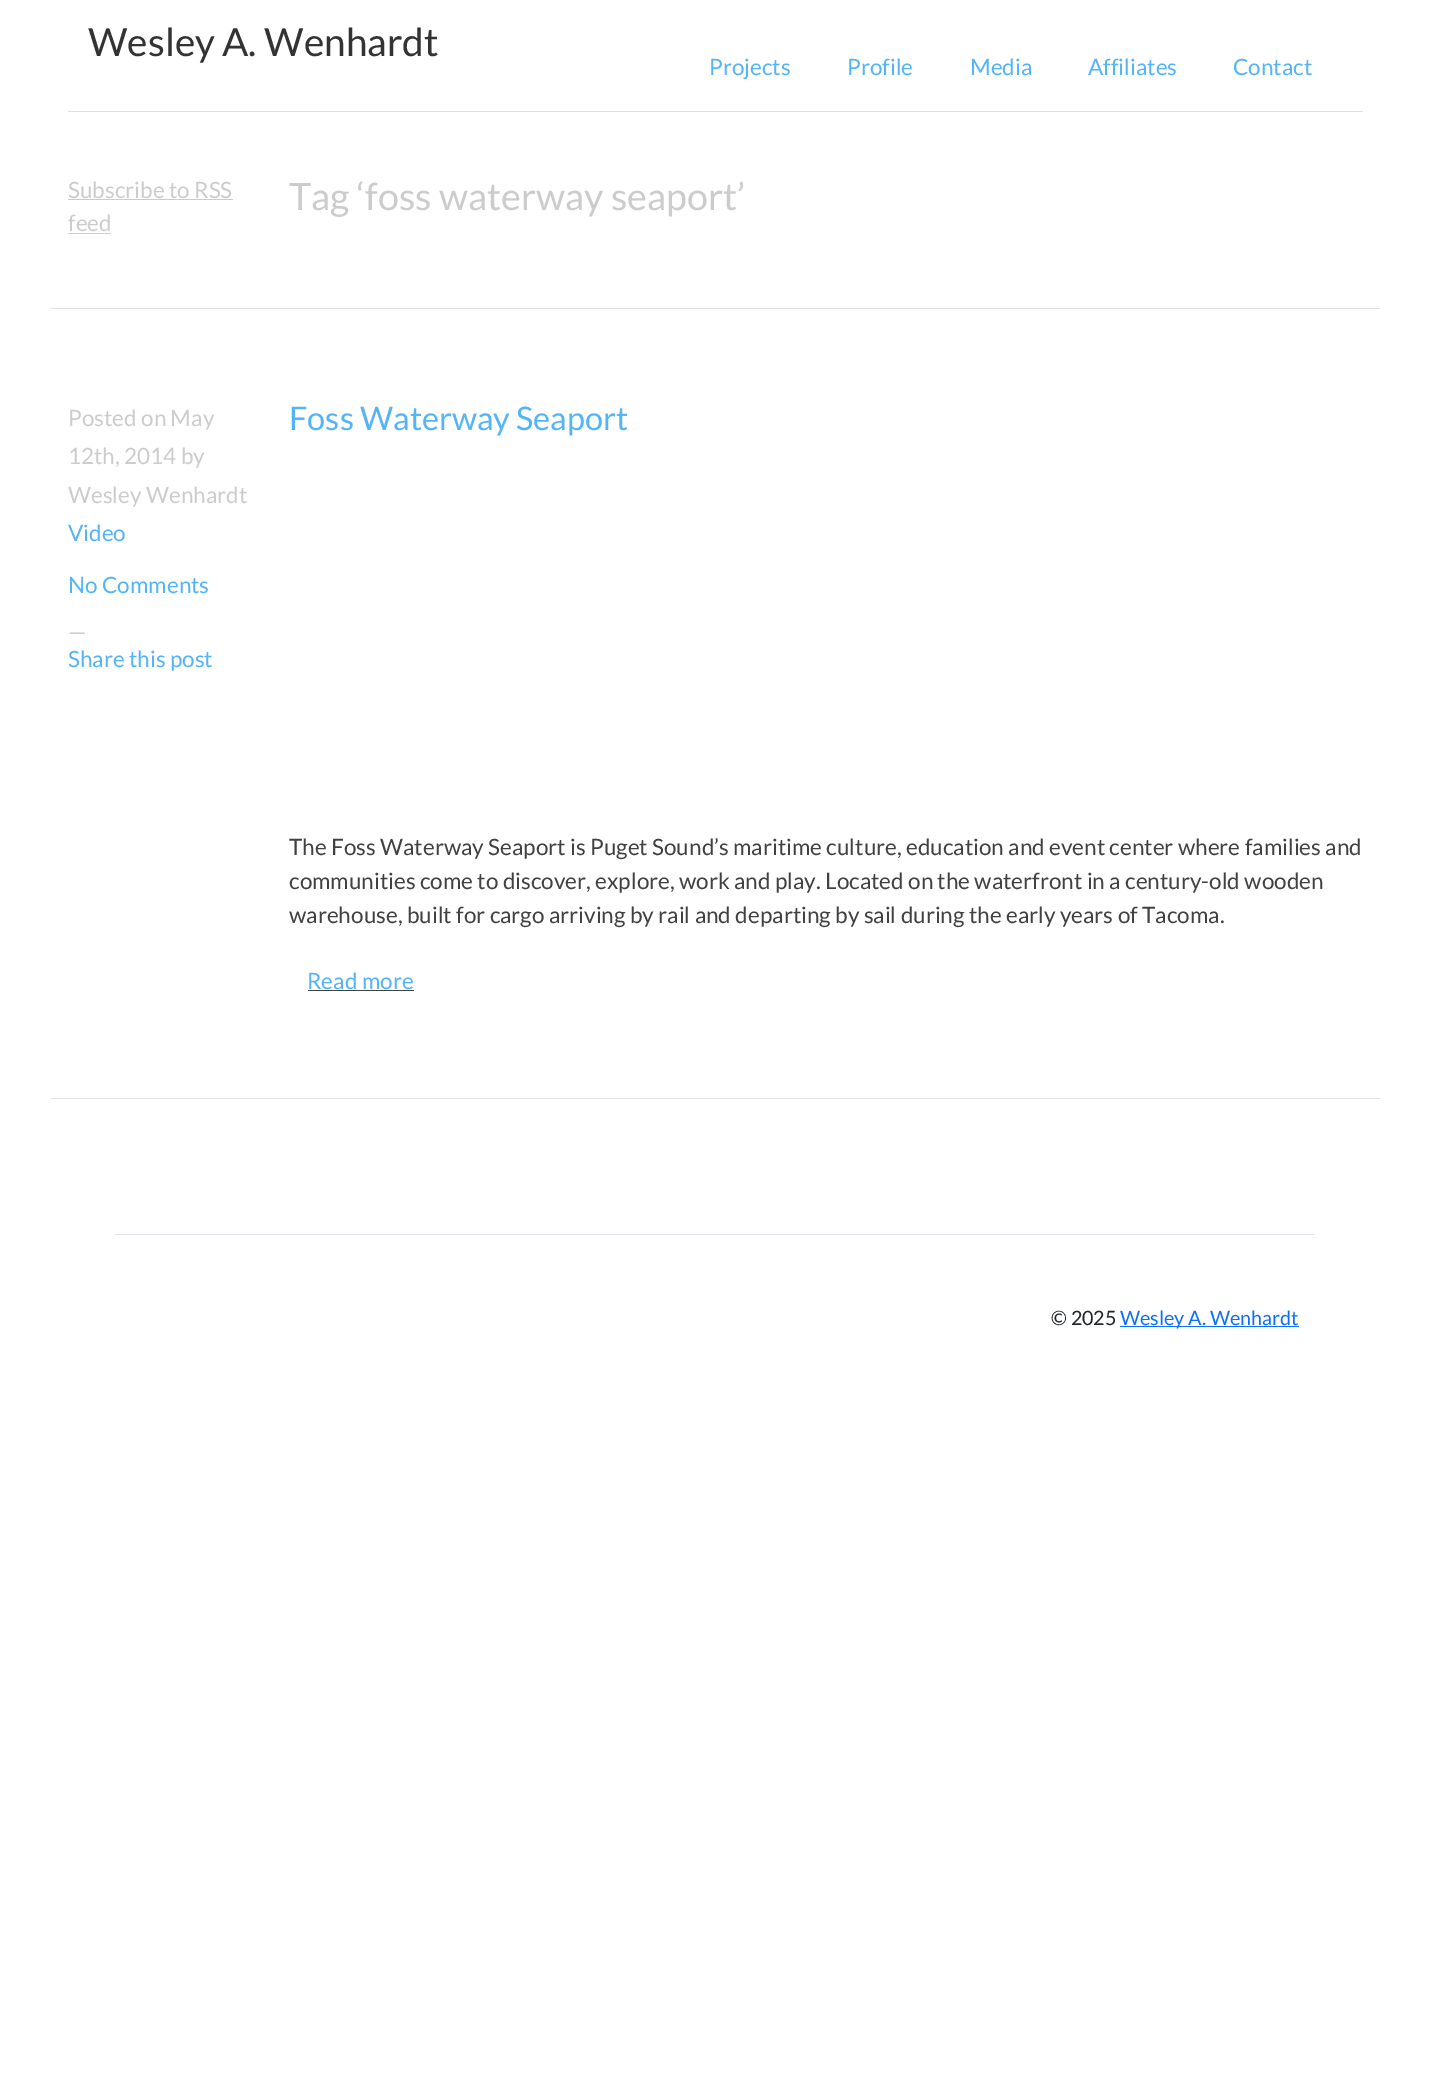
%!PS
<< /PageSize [1429 2099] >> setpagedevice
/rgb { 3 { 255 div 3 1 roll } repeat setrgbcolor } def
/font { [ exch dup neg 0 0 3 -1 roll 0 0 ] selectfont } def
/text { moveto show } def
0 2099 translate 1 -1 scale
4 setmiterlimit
255 255 255 rgb
0 0 1429 2099 rectfill
223 223 223 rgb
68 111 1295 1 rectfill
222 226 230 rgb
51 308 1329 1 rectfill
204 204 204 rgb
68 199 165 1 rectfill
68 233 43 1 rectfill
222 226 230 rgb
51 1098 1329 1 rectfill
65 65 65 rgb
308 990 106 1 rectfill
222 226 230 rgb
115 1234 1200 1 rectfill
13 110 253 rgb
1120 1326 179 1 rectfill
/Lato-Regular 38.75 font
51 51 51 rgb
(Wesley A. Wenhardt) 88 56 text
/Lato-Regular 22.5 font
83 180 248 rgb
(Projects) 709 75 text
(Profile) 847 75 text
(Media) 970 75 text
(Affiliates) 1088 75 text
(Contact) 1233 75 text
204 204 204 rgb
(Subscribe to RSS) 68 198 text
(feed) 68 231 text
/Lato-Regular 37.75 font
(Tag ‘foss waterway seaport’) 289 210 text
/Lato-Regular 22.5 font
(Posted on May) 68 426 text
(12th, 2014 by) 68 464 text
(Wesley Wenhardt) 68 503 text
83 180 248 rgb
(Video) 68 541 text
(No Comments) 68 593 text
204 204 204 rgb
(—) 68 640 text
83 180 248 rgb
(Share this post) 68 667 text
/Lato-Regular 32.5 font
(Foss Waterway Seaport) 289 430 text
/Lato-Regular 22.5 font
65 65 65 rgb
(The Foss Waterway Seaport is Puget Sound’s maritime culture, education and event center where families and) 289 855 text
(communities come to discover, explore, work and play. Located on the waterfront in a century-old wooden) 289 889 text
(warehouse, built for cargo arriving by rail and departing by sail during the early years of Tacoma.) 289 923 text
83 180 248 rgb
(Read more) 307 989 text
/Lato-Regular 19.75 font
33 37 41 rgb
(© 2025) 1051 1325 text
13 110 253 rgb
(Wesley A. Wenhardt) 1120 1325 text
showpage
